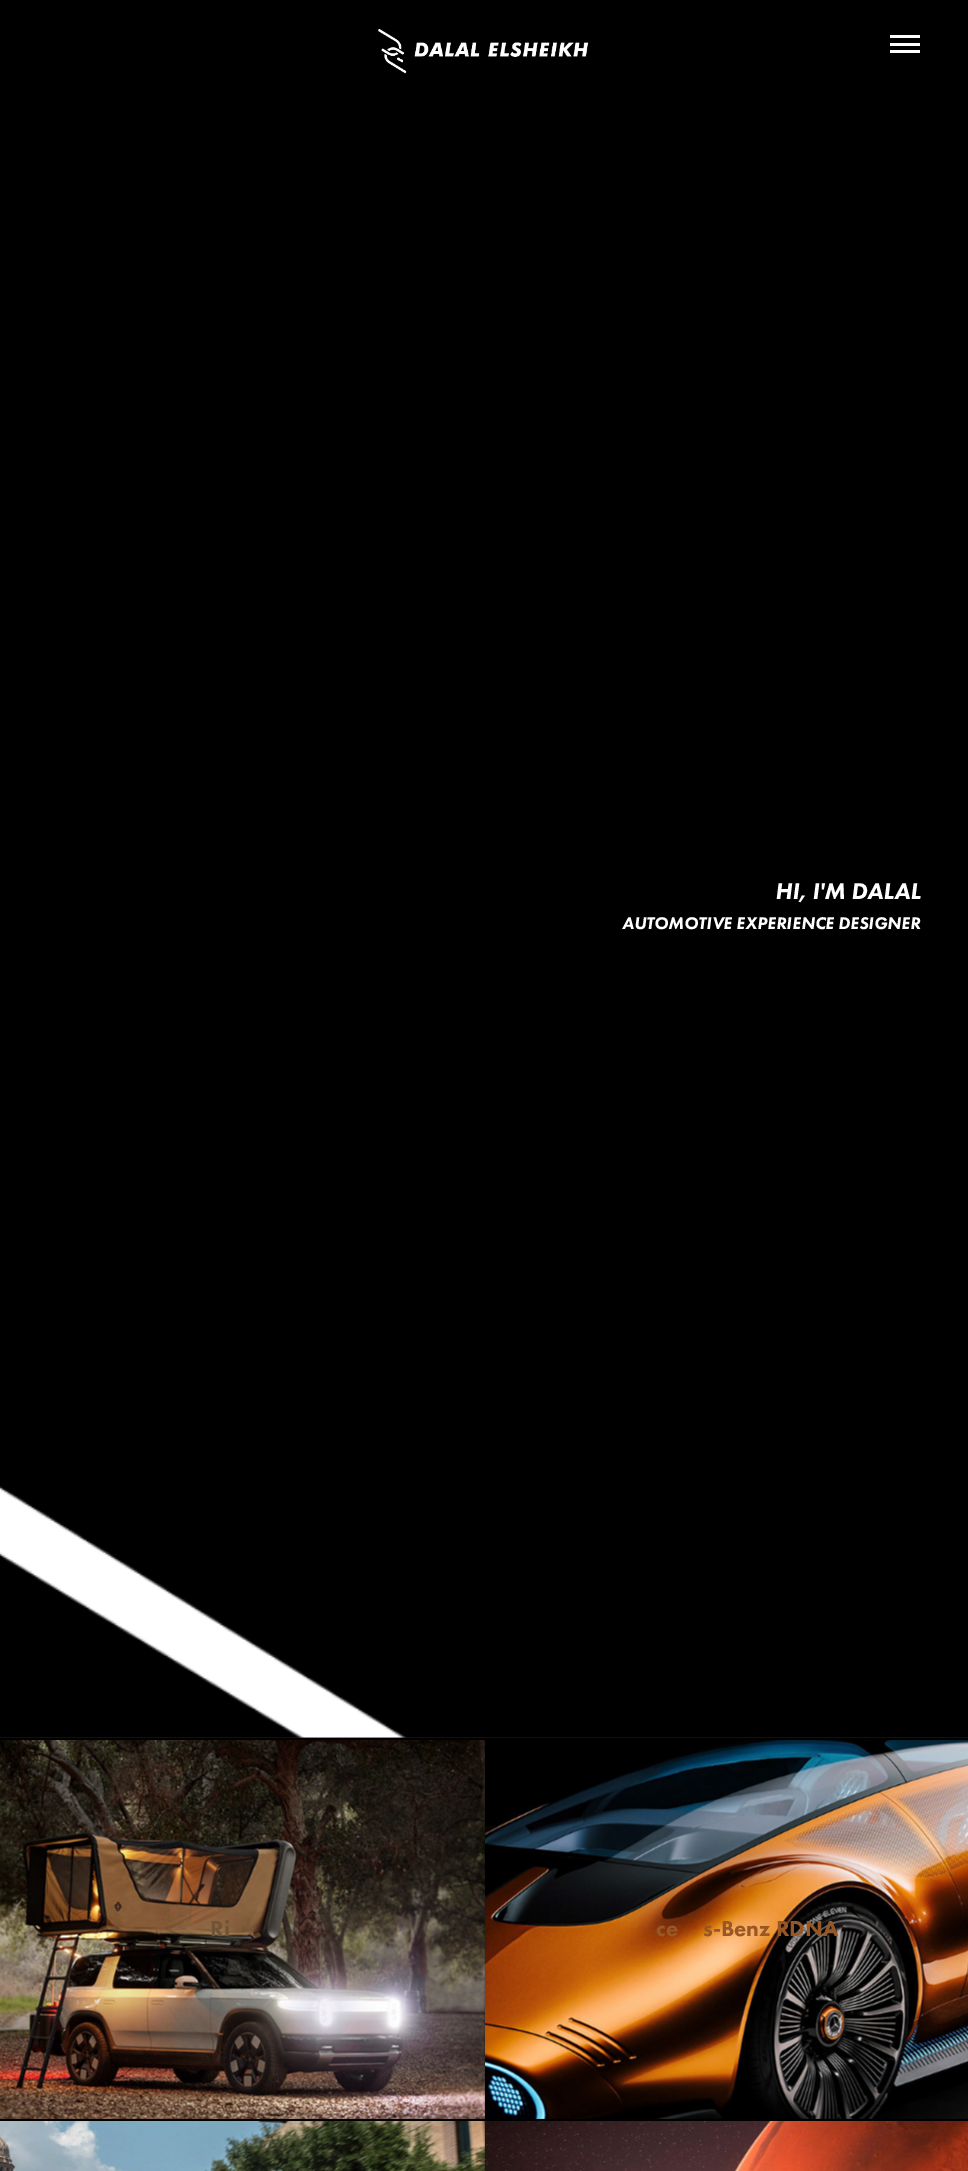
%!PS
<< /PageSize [968 2171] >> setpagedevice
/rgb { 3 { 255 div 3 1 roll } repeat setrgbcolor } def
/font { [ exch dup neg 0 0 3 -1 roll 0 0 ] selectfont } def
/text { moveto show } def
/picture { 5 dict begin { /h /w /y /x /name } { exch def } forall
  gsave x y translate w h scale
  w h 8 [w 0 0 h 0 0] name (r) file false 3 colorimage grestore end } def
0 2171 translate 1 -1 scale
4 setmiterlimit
0 0 0 rgb
0 0 968 2171 rectfill
34 34 34 rgb
0 1737 968 1 rectfill
(img_02.rgb) 0 0 968 1738 picture
(img_01.rgb) 378 29 211 45 picture
255 255 255 rgb
890 35 30 3 rectfill
890 43 30 3 rectfill
890 50 30 3 rectfill
(img_03.rgb) 0 1740 485 379 picture
(img_04.rgb) 485 1740 483 379 picture
(img_05.rgb) 0 2121 485 50 picture
(img_06.rgb) 485 2121 483 50 picture
/FuturaPT-BlackItalic 23.75 font
(HI, I'M DALAL) 775 899 text
/FuturaPT-BlackItalic 17.5 font
(AUTOMOTIVE EXPERIENCE DESIGNER) 622 929 text
/FuturaPT-Black 22.5 font
112 83 56 rgb
(Ri) 210 1936 text
152 88 37 rgb
(ce) 656 1936 text
(s-Benz RDNA) 703 1936 text
showpage
